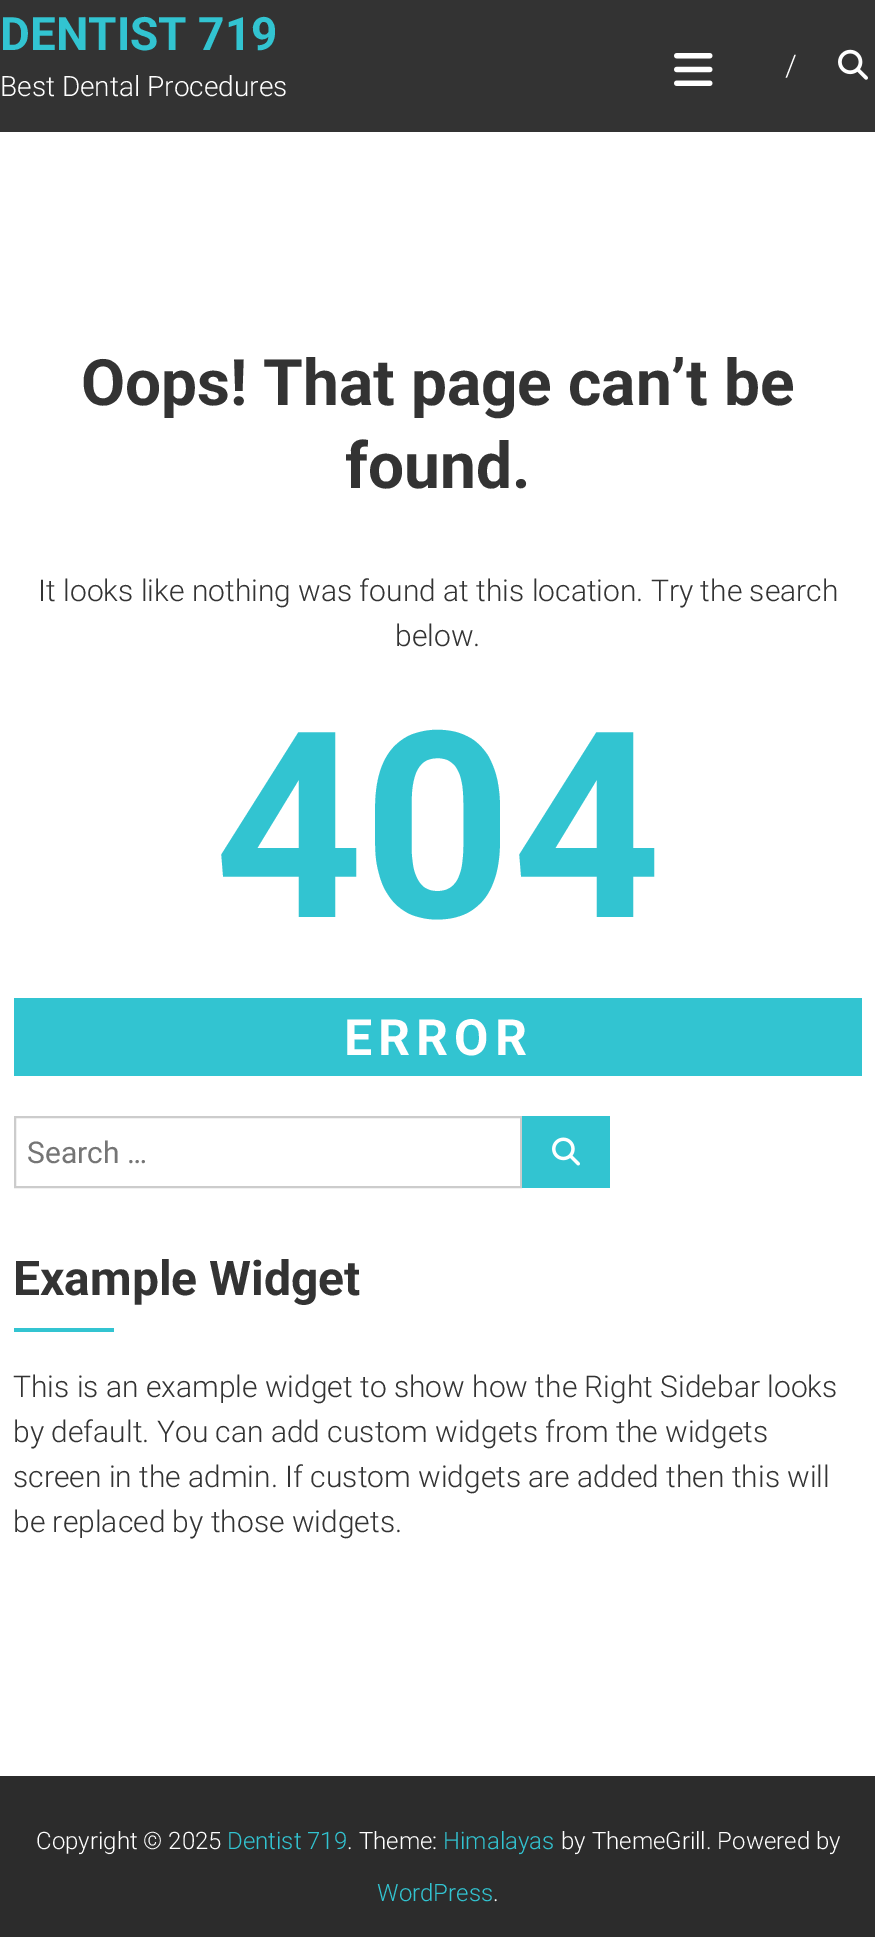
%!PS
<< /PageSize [875 1937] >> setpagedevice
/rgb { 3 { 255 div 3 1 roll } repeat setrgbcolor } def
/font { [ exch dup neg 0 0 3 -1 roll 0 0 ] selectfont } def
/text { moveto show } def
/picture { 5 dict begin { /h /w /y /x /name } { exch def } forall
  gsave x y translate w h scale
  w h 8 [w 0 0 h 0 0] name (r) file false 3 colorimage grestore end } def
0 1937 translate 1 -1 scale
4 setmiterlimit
255 255 255 rgb
0 0 875 1937 rectfill
51 51 51 rgb
0 0 875 132 rectfill
(img_01.rgb) 674 53 39 33 picture
(img_02.rgb) 838 49 30 31 picture
50 196 209 rgb
14 998 848 78 rectfill
204 204 204 rgb
2 setlinewidth
15 1117 506 70 rectstroke
50 196 209 rgb
522 1116 88 72 rectfill
(img_03.rgb) 552 1137 28 29 picture
14 1328 100 4 rectfill
44 44 44 rgb
0 1776 875 161 rectfill
/Roboto-Bold 46 font
50 196 209 rgb
(DENTIST 719) 0 50 text
/Roboto-Light 28 font
255 255 255 rgb
(Best Dental Procedures) 0 96 text
/Roboto-Light 30 font
(/) 785 76 text
/Roboto-Bold 64 font
51 51 51 rgb
(Oops! That page can’t be) 81 405 text
(found.) 345 488 text
/Roboto-Light 30 font
(It looks like nothing was found at this location. Try the search) 38 601 text
(below.) 395 646 text
/Roboto-Bold 260 font
50 196 209 rgb
(404) 214 917 text
/Roboto-Bold 50 font
255 255 255 rgb
344 1055 moveto 6 0 (ERROR) ashow
/Roboto-Regular 30 font
117 117 117 rgb
(Search …) 27 1163 text
/Roboto-Bold 48 font
51 51 51 rgb
(Example Widget) 13 1295 text
/Roboto-Light 30 font
(This is an example widget to show how the Right Sidebar looks) 13 1397 text
(by default. You can add custom widgets from the widgets) 13 1442 text
(screen in the admin. If custom widgets are added then this will) 13 1487 text
(be replaced by those widgets.) 13 1532 text
/Roboto-Light 24 font
255 255 255 rgb
(Copyright © 2025) 36 1849 text
50 196 209 rgb
(Dentist 719) 227 1849 text
255 255 255 rgb
(. Theme:) 347 1849 text
50 196 209 rgb
(Himalayas) 443 1849 text
255 255 255 rgb
(by ThemeGrill. Powered by) 561 1849 text
50 196 209 rgb
(WordPress) 377 1901 text
255 255 255 rgb
(.) 493 1901 text
showpage
